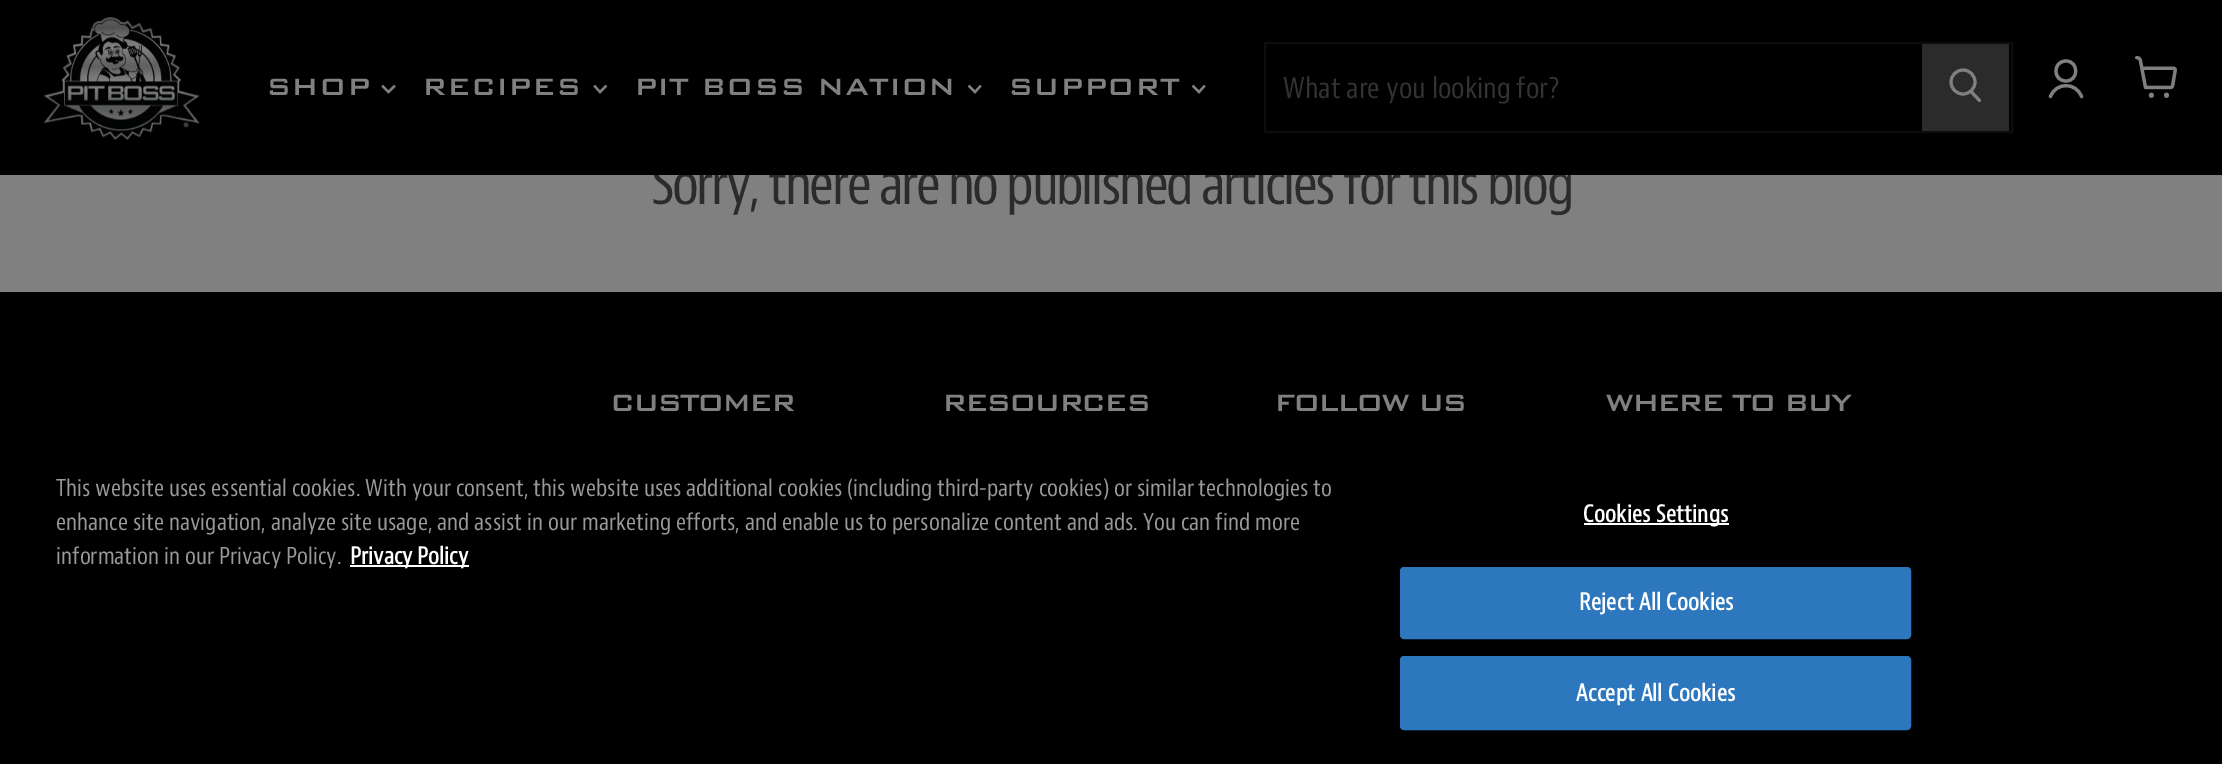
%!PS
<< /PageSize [2222 764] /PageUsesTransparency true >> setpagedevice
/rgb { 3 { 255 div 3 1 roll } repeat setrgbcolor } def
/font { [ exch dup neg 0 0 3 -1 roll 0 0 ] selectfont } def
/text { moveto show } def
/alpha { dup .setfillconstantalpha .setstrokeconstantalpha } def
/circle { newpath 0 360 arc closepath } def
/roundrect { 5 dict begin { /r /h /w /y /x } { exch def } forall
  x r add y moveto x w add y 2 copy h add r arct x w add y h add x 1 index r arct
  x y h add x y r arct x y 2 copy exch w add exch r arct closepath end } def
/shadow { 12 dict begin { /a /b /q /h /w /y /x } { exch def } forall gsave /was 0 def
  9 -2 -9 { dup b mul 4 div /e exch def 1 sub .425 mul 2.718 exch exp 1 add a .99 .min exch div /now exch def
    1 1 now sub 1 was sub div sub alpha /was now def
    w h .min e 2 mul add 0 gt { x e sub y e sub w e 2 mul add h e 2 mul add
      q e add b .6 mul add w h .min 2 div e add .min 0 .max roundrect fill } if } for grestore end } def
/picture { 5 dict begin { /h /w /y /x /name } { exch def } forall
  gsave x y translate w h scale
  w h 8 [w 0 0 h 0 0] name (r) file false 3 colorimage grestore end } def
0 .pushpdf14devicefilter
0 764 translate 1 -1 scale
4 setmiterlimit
128 128 128 rgb
0 0 2222 764 rectfill
0 0 0 rgb
0 292 2222 144 rectfill
0 436 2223 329 0 16 0.2 shadow
0 436 2222 328 rectfill
255 255 255 rgb
350 565 119 2 rectfill
1584 523 145 2 rectfill
45 119 190 rgb
1401 568 509 70 3 roundrect gsave fill grestore
2 setlinewidth
stroke
1401 657 509 72 3 roundrect gsave fill grestore
stroke
/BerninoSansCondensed-Regular 56 font
43 43 43 rgb
651 204 moveto -2.45 0 (Sorry, there are no published articles for this blog) ashow
0 0 0 rgb
0 0 2222 175 rectfill
13 13 13 rgb
1265 43 747 89 rectstroke
/BerninoSansCondensed-Regular 28 font
51 51 51 rgb
(What are you looking for?) 1283 98 text
43 43 43 rgb
1922 44 87 87 rectfill
128 128 128 rgb
3 setlinewidth
1 setlinecap
1979.5 100.5 moveto -8 -8.5 rlineto stroke
0 setlinecap
1963 82 12 circle stroke
2.2 setlinewidth
2 setlinecap
1199 92 moveto 5 -5.5 rlineto 1199 92 moveto -5.5 -5.5 rlineto stroke
/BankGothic-Bold 31.5 font
(SUPPORT) 1008 95 text
975 92 moveto 5 -5.5 rlineto 975 92 moveto -5.5 -5.5 rlineto stroke
(PIT BOSS NATION) 634 95 text
600 92 moveto 5.5 -5.5 rlineto 600 92 moveto -5 -5.5 rlineto stroke
(RECIPES) 422 95 text
388.5 92 moveto 5.5 -5.5 rlineto 388.5 92 moveto -5.5 -5.5 rlineto stroke
(SHOP) 266 95 text
(img_02.rgb) 2135 56 42 42 picture
3.2 setlinewidth
1 setlinecap
1 setlinejoin
2066 81 moveto 13 0 13 -20 0 -20 rcurveto -13.5 0 -13.5 20 0 20 rcurveto closepath 2081.5 96.5 moveto -5.5 -14.5 -25.5 -14.5 -31 0 rcurveto stroke
(img_01.rgb) 43 17 157 123 picture
610 411 moveto -2.45 0 (CUSTOMER) ashow
942 411 moveto -2.45 0 (RESOURCES) ashow
1274 411 moveto -2.45 0 (FOLLOW US) ashow
1605 411 moveto -2.45 0 (WHERE TO BUY) ashow
/BerninoSansCondensed-Regular 22.75 font
153 153 153 rgb
(This website uses essential cookies. With your consent, this website uses additional cookies \(including third-party cookies\) or similar technologies to) 56 496 text
(enhance site navigation, analyze site usage, and assist in our marketing efforts, and enable us to personalize content and ads. You can find more) 56 530 text
(information in our Privacy Policy.) 56 564 text
/BerninoSansCondensed-Bold 22.75 font
255 255 255 rgb
(Privacy Policy) 350 564 text
1583 522 moveto 0.25 0 (Cookies Settings) ashow
1579 610 moveto 0.25 0 (Reject All Cookies) ashow
1576 701 moveto 0.25 0 (Accept All Cookies) ashow
.poppdf14devicefilter showpage
